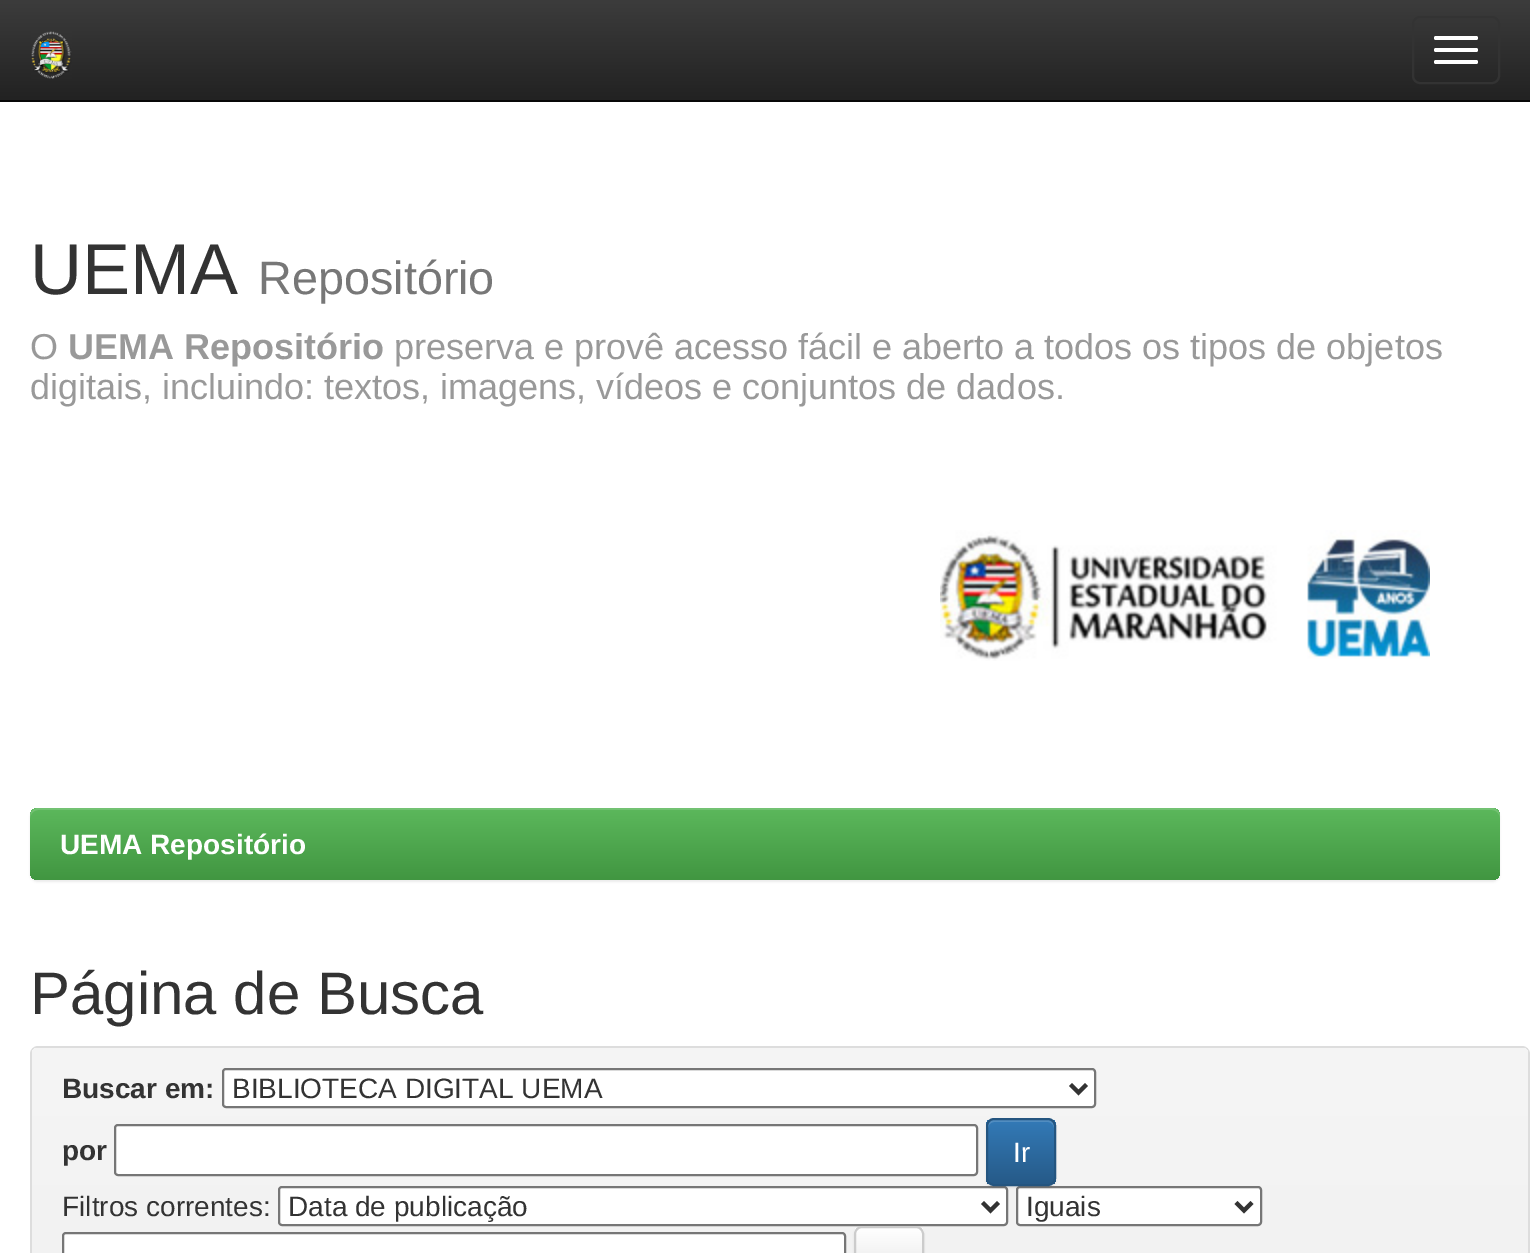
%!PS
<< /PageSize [1530 1253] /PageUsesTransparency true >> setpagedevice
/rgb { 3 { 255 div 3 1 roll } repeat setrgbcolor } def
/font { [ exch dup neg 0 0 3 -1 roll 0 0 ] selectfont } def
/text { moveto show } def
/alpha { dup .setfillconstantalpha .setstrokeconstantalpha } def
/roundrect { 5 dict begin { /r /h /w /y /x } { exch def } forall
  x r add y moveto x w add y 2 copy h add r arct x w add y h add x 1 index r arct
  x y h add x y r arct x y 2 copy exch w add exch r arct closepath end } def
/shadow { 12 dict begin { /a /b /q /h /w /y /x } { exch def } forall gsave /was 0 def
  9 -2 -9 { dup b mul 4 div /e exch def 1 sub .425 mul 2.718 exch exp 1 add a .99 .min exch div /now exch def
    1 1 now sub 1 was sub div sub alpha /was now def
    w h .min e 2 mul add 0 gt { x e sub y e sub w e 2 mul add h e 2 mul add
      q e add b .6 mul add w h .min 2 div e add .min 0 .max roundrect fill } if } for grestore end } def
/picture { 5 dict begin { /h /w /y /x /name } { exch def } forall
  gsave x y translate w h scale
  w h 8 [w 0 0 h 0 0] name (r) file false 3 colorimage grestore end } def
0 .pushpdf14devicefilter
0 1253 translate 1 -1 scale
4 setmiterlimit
255 255 255 rgb
0 0 1530 1253 rectfill
gsave 0 0 moveto 1530 0 rlineto 0 100 rlineto -1530 0 rlineto closepath clip newpath
<< /ShadingType 2 /ColorSpace /DeviceRGB /Coords [765 0 765 100] /Extend [true true] /Function << /FunctionType 2 /Domain [0 1] /C0 [0.235 0.235 0.235] /C1 [0.133 0.133 0.133] /N 1 >> >> shfill grestore
8 8 8 rgb
0 100 1530 2 rectfill
(img_01.rgb) 31 31 41 48 picture
51 51 51 rgb
2 setlinewidth
1413 17 86 66 7 roundrect stroke
255 255 255 rgb
1434 36 44 4 2 roundrect fill
1434 48 44 4 2 roundrect fill
1434 60 44 4 2 roundrect fill
(img_02.rgb) 940 530 490 131 picture
0 0 0 rgb
30 810 1470 72 8 1 0.07 shadow
gsave 30 808 1470 72 8 roundrect clip newpath
<< /ShadingType 2 /ColorSpace /DeviceRGB /Coords [765 808 765 880] /Extend [true true] /Function << /FunctionType 2 /Domain [0 1] /C0 [0.361 0.722 0.361] /C1 [0.255 0.588 0.255] /N 1 >> >> shfill grestore
0.15 alpha
255 255 255 rgb
38 810 moveto 1454 0 rlineto 4 0 8 4 8 8 rcurveto 0 -2 rlineto 0 -4 -4 -8 -8 -8 rcurveto -1454 0 rlineto -4 0 -8 4 -8 8 rcurveto 0 2 rlineto 0 -4 4 -8 8 -8 rcurveto closepath fill
1 alpha
221 221 221 rgb
31 1047 1498 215 7 roundrect stroke
gsave 38 1048 moveto 1484 0 rlineto 3.5 0 6 2.5 6 6 rcurveto 0 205 rlineto -1496 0 rlineto 0 -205 rlineto 0 -3.5 2.5 -6 6 -6 rcurveto closepath clip newpath
<< /ShadingType 2 /ColorSpace /DeviceRGB /Coords [780 1048 780 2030] /Extend [true true] /Function << /FunctionType 2 /Domain [0 1] /C0 [0.961 0.961 0.961] /C1 [0.91 0.91 0.91] /N 1 >> >> shfill grestore
255 255 255 rgb
223 1069 872 38 3 roundrect gsave fill grestore
118 118 118 rgb
stroke
51 51 51 rgb
4 setlinewidth
1070.5 1084.5 moveto 8 8 rlineto 8 -8 rlineto stroke
255 255 255 rgb
115 1125 862 50 3 roundrect gsave fill grestore
118 118 118 rgb
2 setlinewidth
stroke
255 255 255 rgb
279 1187 728 38 3 roundrect gsave fill grestore
118 118 118 rgb
stroke
255 255 255 rgb
1017 1187 244 38 3 roundrect gsave fill grestore
118 118 118 rgb
stroke
0 0 0 rgb
986 1120 70 68 8 1 0.07 shadow
gsave
986 1118 70 68 8 roundrect clip newpath
gsave 986 1120 moveto 70 0 rlineto 0 64 rlineto -70 0 rlineto closepath clip newpath
<< /ShadingType 2 /ColorSpace /DeviceRGB /Coords [1021 1120 1021 1184] /Extend [true true] /Function << /FunctionType 2 /Domain [0 1] /C0 [0.2 0.478 0.718] /C1 [0.149 0.353 0.533] /N 1 >> >> shfill grestore
grestore
0.15 alpha
255 255 255 rgb
994 1122 moveto 54 0 rlineto 3 0 6 3 6 6 rcurveto 0 -10 -7 -8 -15 -8 rcurveto -36 0 rlineto -8 0 -15 -2 -15 8 rcurveto 0 -3 3 -6 6 -6 rcurveto closepath fill
1 alpha
36 85 128 rgb
987 1119 68 66 7 roundrect stroke
51 51 51 rgb
4 setlinewidth
982.5 1202.5 moveto 8 8 rlineto 8 -8 rlineto stroke
1236 1202.5 moveto 8 8 rlineto 8 -8 rlineto stroke
255 255 255 rgb
63 1233 782 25 3 roundrect gsave fill grestore
118 118 118 rgb
2 setlinewidth
stroke
0 0 0 rgb
854 1228 70 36 8 1 0.07 shadow
gsave
854 1226 70 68 8 roundrect clip newpath
gsave 854 1228 moveto 70 0 rlineto 0 25 rlineto -70 0 rlineto closepath clip newpath
<< /ShadingType 2 /ColorSpace /DeviceRGB /Coords [889 1228 889 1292] /Extend [true true] /Function << /FunctionType 2 /Domain [0 1] /C0 [1 1 1] /C1 [0.878 0.878 0.878] /N 1 >> >> shfill grestore
grestore
204 204 204 rgb
855 1227 68 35 7 roundrect stroke
/LiberationSans-Regular 72 font
51 51 51 rgb
(UEMA) 30 294 text
/LiberationSans-Regular 46.75 font
119 119 119 rgb
(Repositório) 258 294 text
/LiberationSans-Regular 36 font
153 153 153 rgb
(O) 30 359 text
/LiberationSans-Bold 36 font
(UEMA Repositório) 68 359 text
/LiberationSans-Regular 36 font
(preserva e provê acesso fácil e aberto a todos os tipos de objetos) 394 359 text
(digitais, incluindo: textos, imagens, vídeos e conjuntos de dados.) 30 399 text
/LiberationSans-Bold 28 font
255 255 255 rgb
(UEMA Repositório) 60 854 text
/LiberationSans-Regular 60 font
51 51 51 rgb
(Página de Busca) 30 1014 text
/LiberationSans-Bold 28 font
(Buscar em:) 62 1098 text
/LiberationSans-Regular 28 font
(BIBLIOTECA DIGITAL UEMA) 232 1098 text
/LiberationSans-Bold 28 font
(por) 62 1160 text
/LiberationSans-Regular 28 font
255 255 255 rgb
(Ir) 1013 1162 text
51 51 51 rgb
(Filtros correntes:) 62 1216 text
(Data de publicação) 288 1216 text
(Iguais) 1026 1216 text
.poppdf14devicefilter showpage
